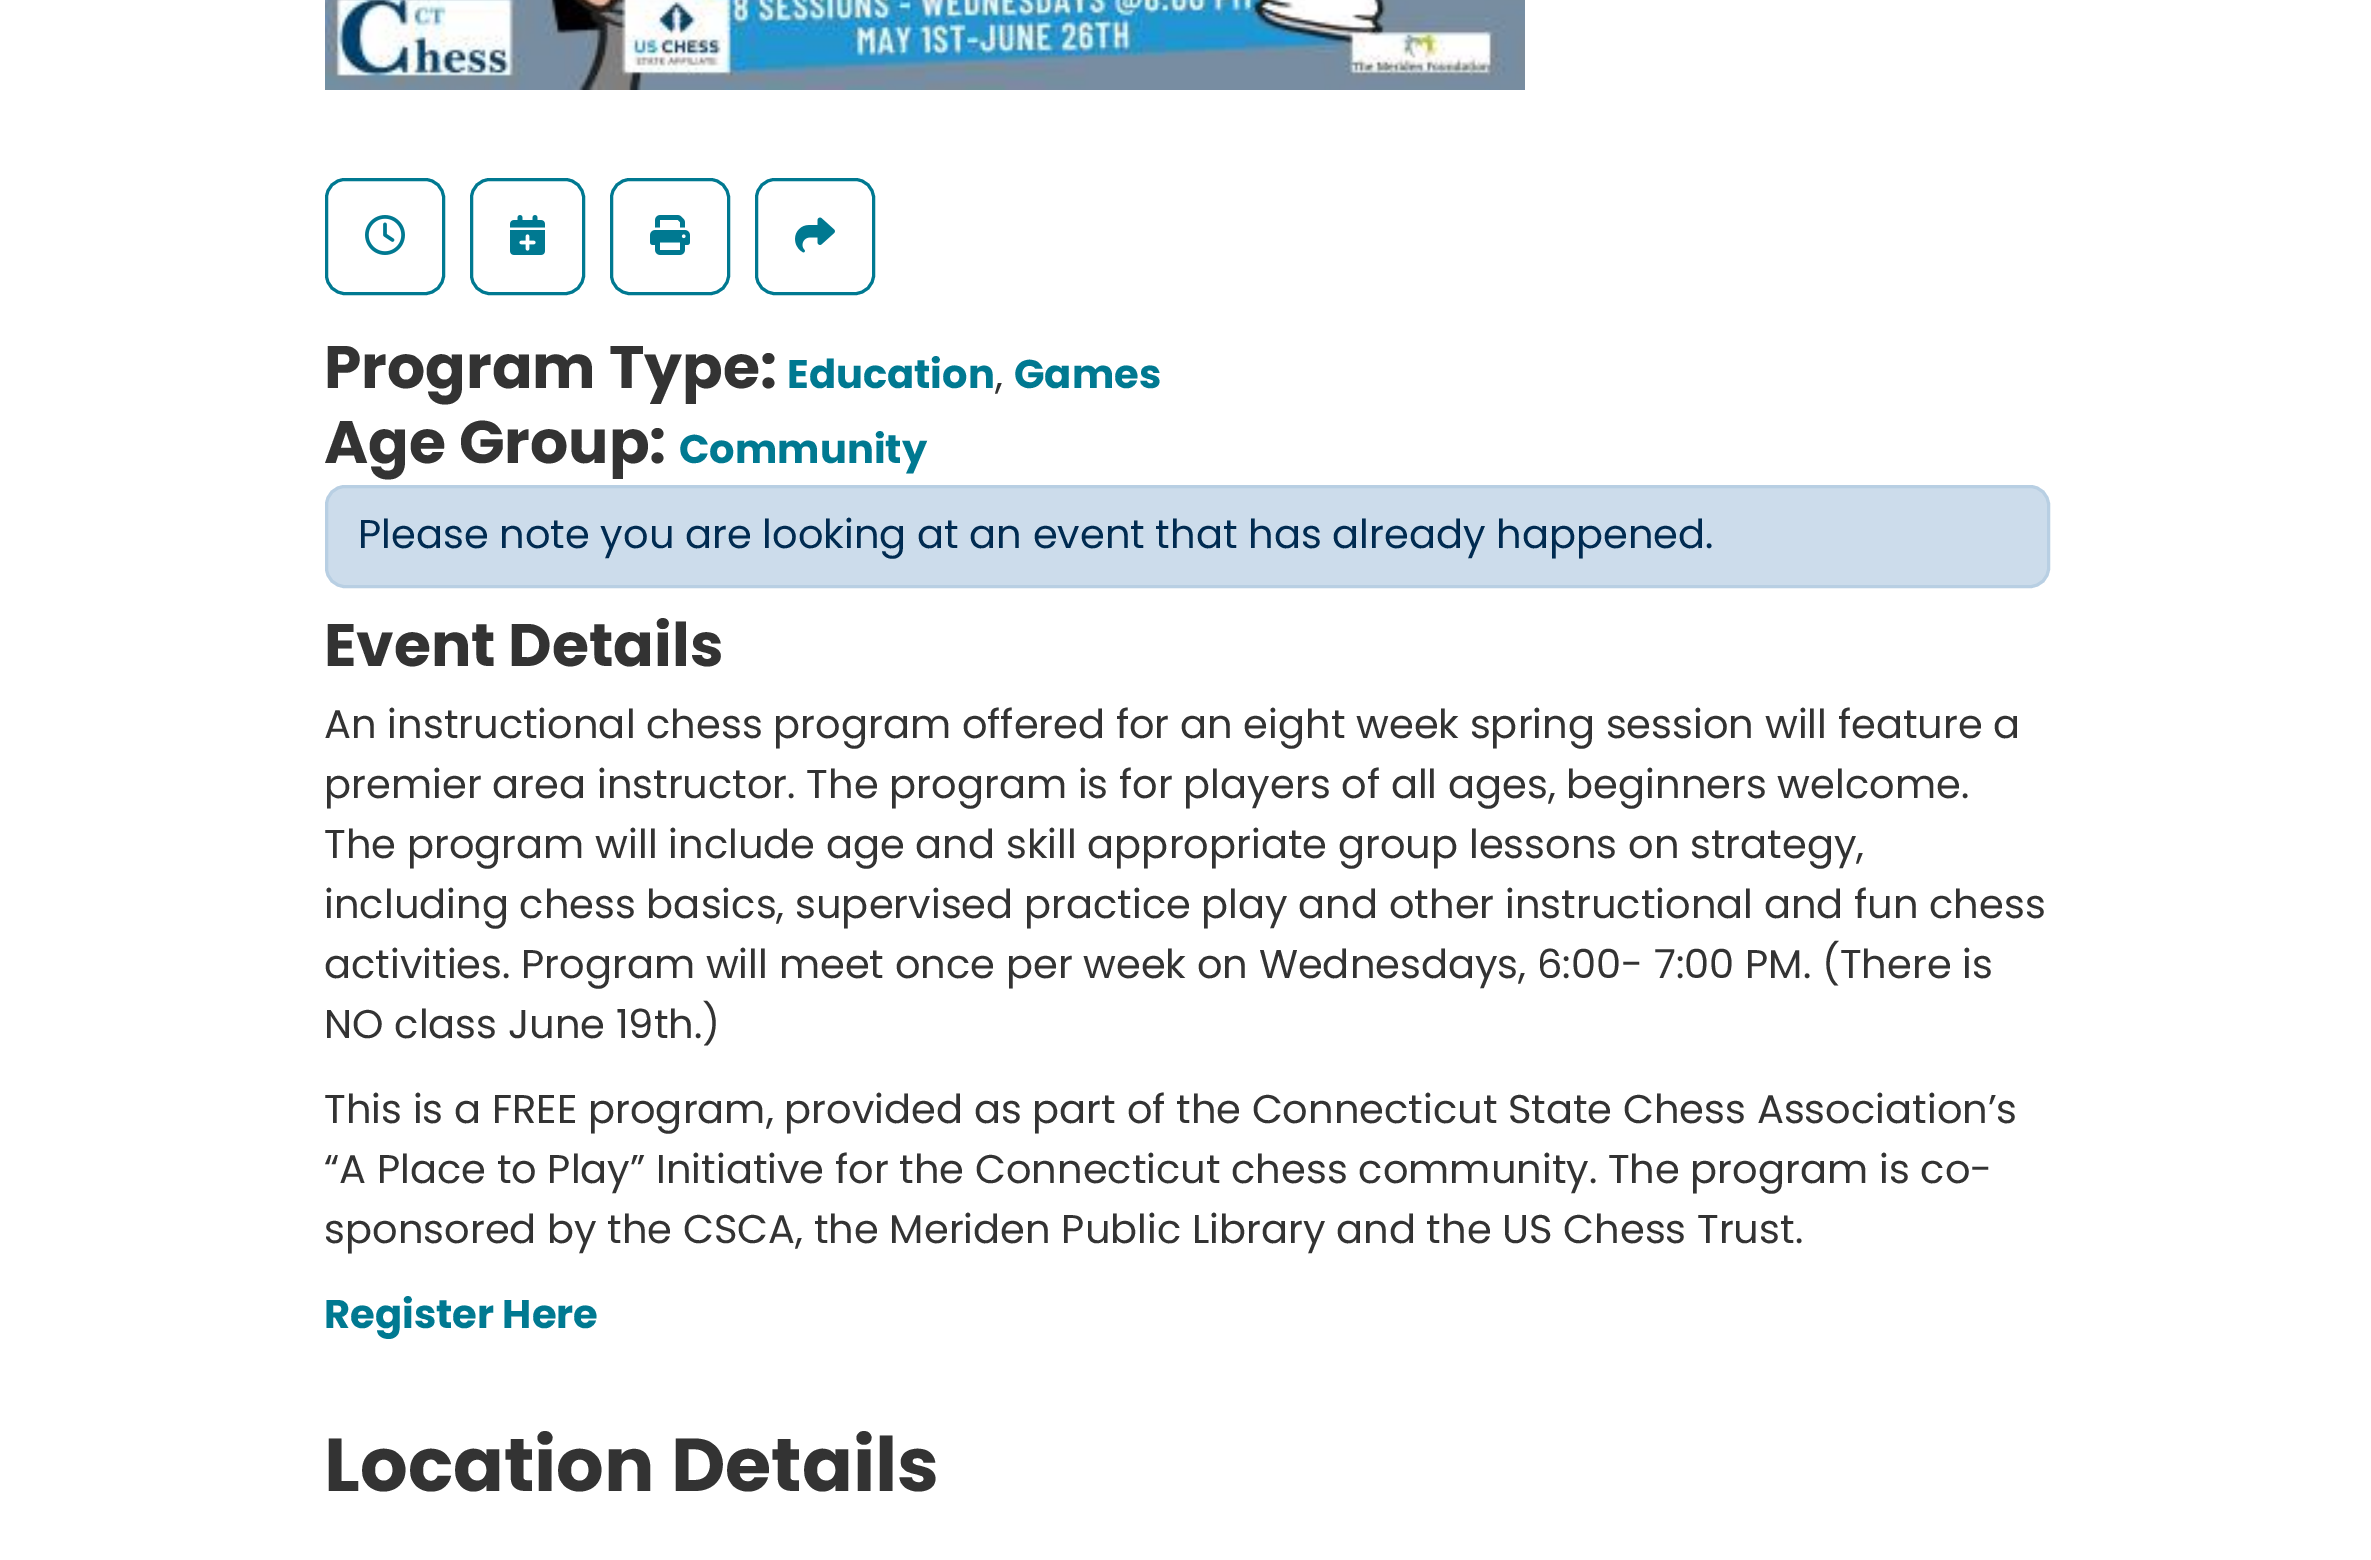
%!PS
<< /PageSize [2371 1560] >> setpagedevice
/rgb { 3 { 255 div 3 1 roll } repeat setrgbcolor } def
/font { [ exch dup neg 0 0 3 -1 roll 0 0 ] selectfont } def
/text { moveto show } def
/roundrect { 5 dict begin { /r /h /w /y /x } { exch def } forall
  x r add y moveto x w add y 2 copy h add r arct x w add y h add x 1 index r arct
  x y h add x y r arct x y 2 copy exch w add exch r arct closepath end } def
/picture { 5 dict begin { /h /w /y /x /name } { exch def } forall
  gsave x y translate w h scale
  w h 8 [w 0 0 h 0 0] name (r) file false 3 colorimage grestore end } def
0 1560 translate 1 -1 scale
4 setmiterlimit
255 255 255 rgb
0 0 2371 1560 rectfill
(img_01.rgb) 325 0 1200 90 picture
0 121 145 rgb
3 setlinewidth
326.5 179.5 117 114 18.5 roundrect stroke
(img_02.rgb) 365 215 40 40 picture
471.5 179.5 112 114 18.5 roundrect stroke
(img_03.rgb) 510 215 35 40 picture
611.5 179.5 117 114 18.5 roundrect stroke
(img_04.rgb) 650 215 40 40 picture
756.5 179.5 117 114 18.5 roundrect stroke
(img_05.rgb) 795 217 40 36 picture
204 220 235 rgb
326.5 486.5 1722 100 18.5 roundrect gsave fill grestore
184 207 227 rgb
stroke
/Poppins-Bold 60 font
51 51 51 rgb
(Program Type:) 324 388 text
/Poppins-Bold 40 font
0 121 145 rgb
(Education) 787 388 text
/Poppins-Regular 40 font
51 51 51 rgb
(,) 995 388 text
/Poppins-Bold 40 font
0 121 145 rgb
(Games) 1014 388 text
/Poppins-Bold 60 font
51 51 51 rgb
(Age Group:) 324 463 text
/Poppins-Bold 40 font
0 121 145 rgb
(Community) 679 463 text
/Poppins-Regular 40 font
0 43 81 rgb
(Please note you are looking at an event that has already happened.) 358 548 text
/Poppins-Bold 60 font
51 51 51 rgb
(Event Details) 324 666 text
/Poppins-Regular 40 font
(An instructional chess program offered for an eight week spring session will feature a) 324 738 text
(premier area instructor. The program is for players of all ages, beginners welcome.) 324 798 text
(The program will include age and skill appropriate group lessons on strategy,) 324 858 text
(including chess basics, supervised practice play and other instructional and fun chess) 324 918 text
(activities. Program will meet once per week on Wednesdays, 6:00- 7:00 PM. \(There is) 324 978 text
(NO class June 19th.\)) 324 1038 text
(This is a FREE program, provided as part of the Connecticut State Chess Association’s) 324 1123 text
(“A Place to Play” Initiative for the Connecticut chess community. The program is co-) 324 1183 text
(sponsored by the CSCA, the Meriden Public Library and the US Chess Trust.) 324 1243 text
/Poppins-Bold 40 font
0 121 145 rgb
(Register Here) 324 1328 text
/Poppins-Bold 75 font
51 51 51 rgb
(Location Details) 324 1491 text
showpage
